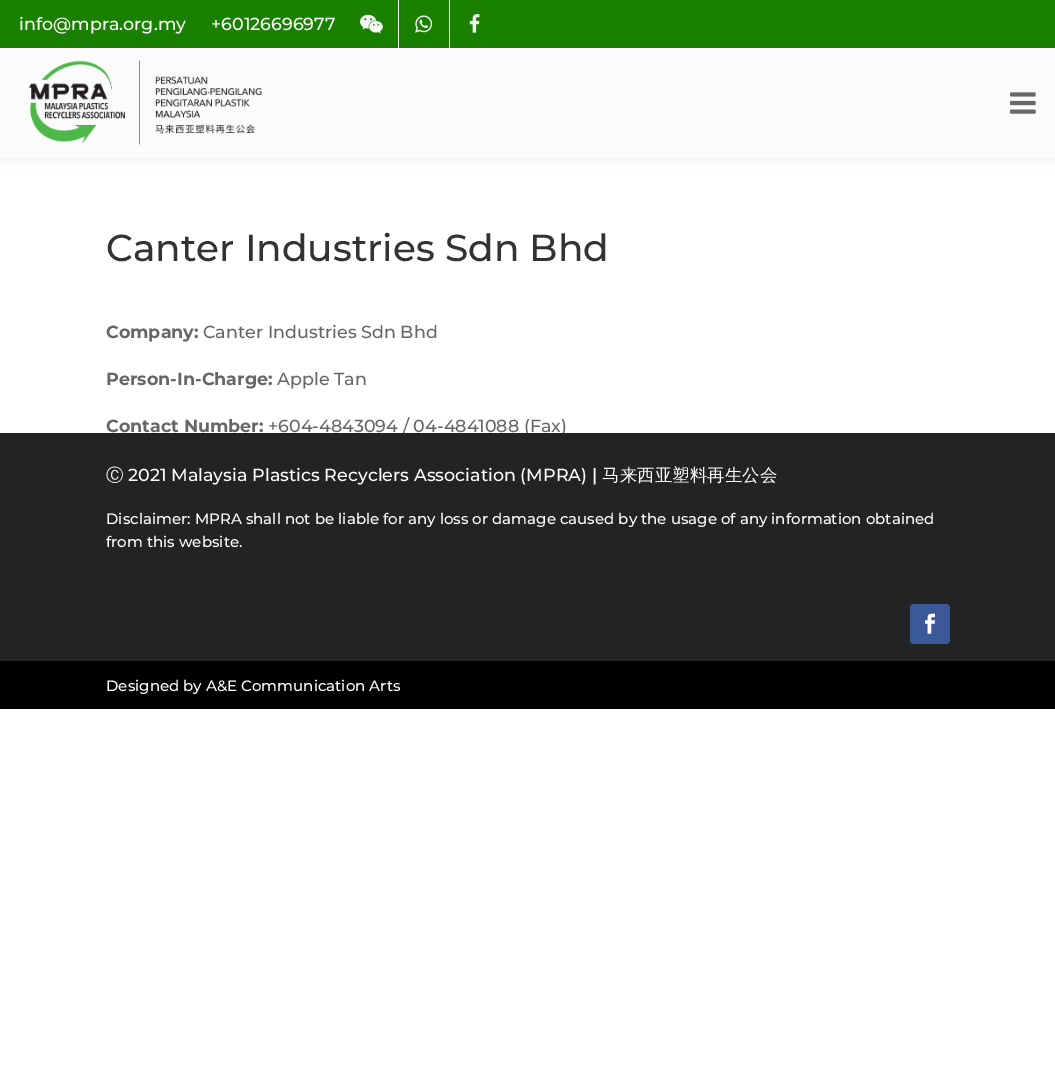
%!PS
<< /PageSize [1055 1081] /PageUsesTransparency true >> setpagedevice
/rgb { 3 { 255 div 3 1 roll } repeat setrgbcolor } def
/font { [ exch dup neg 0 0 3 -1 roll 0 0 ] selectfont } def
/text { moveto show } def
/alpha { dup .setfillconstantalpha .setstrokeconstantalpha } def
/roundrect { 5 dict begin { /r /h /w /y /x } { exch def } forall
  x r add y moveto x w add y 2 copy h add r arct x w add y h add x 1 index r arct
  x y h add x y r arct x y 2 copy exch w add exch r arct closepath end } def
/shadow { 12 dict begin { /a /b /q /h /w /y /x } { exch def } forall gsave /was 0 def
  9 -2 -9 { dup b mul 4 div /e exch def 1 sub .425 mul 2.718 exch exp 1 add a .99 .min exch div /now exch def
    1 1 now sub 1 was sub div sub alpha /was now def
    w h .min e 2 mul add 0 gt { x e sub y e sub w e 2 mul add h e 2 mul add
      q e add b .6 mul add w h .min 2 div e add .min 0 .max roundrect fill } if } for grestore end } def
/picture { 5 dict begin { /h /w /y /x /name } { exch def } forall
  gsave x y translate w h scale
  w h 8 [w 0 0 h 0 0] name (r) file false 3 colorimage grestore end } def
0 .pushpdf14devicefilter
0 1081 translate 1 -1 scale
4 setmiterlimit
255 255 255 rgb
0 0 1055 1081 rectfill
25 128 0 rgb
0 0 1055 48 rectfill
247 247 247 rgb
398 0 1 48 rectfill
(img_01.rgb) 360 14 23 20 picture
449 0 1 48 rectfill
(img_02.rgb) 415 15 18 18 picture
(img_03.rgb) 469 14 11 19 picture
251 251 251 rgb
0 48 1055 110 rectfill
gsave
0 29 moveto 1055 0 rlineto 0 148 rlineto -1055 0 rlineto closepath 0 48 moveto 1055 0 rlineto 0 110 rlineto -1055 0 rlineto closepath eoclip newpath
0 0 0 rgb
0 48 1055 110 0 6 0.1 shadow
grestore
(img_04.rgb) 28 60 234 85 picture
(img_05.rgb) 1010 92 26 22 picture
0 0 0 rgb
0 661 1055 48 rectfill
/Montserrat-Medium 17.5 font
255 255 255 rgb
(info@mpra.org.my) 19 30 text
(+60126696977) 211 30 text
/Montserrat-Medium 37.5 font
51 51 51 rgb
(Canter Industries Sdn Bhd) 106 261 text
/Montserrat-Bold 17.5 font
102 102 102 rgb
(Company:) 106 338 text
/Montserrat-Medium 17.5 font
(Canter Industries Sdn Bhd) 203 338 text
/Montserrat-Bold 17.5 font
(Person-In-Charge:) 106 385 text
/Montserrat-Medium 17.5 font
(Apple Tan) 277 385 text
/Montserrat-Bold 17.5 font
(Contact Number:) 106 432 text
/Montserrat-Medium 17.5 font
(+604-4843094 / 04-4841088 \(Fax\)) 268 432 text
35 35 35 rgb
0 433 1055 228 rectfill
/WenQuanYiZenHei-Medium 17.5 font
255 255 255 rgb
(Ⓒ) 106 481 text
/Montserrat-Medium 17.5 font
(2021 Malaysia Plastics Recyclers Association \(MPRA\) |) 128 481 text
/WenQuanYiZenHei-Medium 17.5 font
(马来西亚塑料再生公会) 602 481 text
/Montserrat-Medium 15 font
(Disclaimer: MPRA shall not be liable for any loss or damage caused by the usage of any information obtained) 106 524 text
(from this website.) 106 547 text
59 89 152 rgb
910 604 40 40 4 roundrect fill
(img_06.rgb) 925 613 10 21 picture
255 255 255 rgb
(Designed by A&E Communication Arts) 106 691 text
.poppdf14devicefilter showpage
